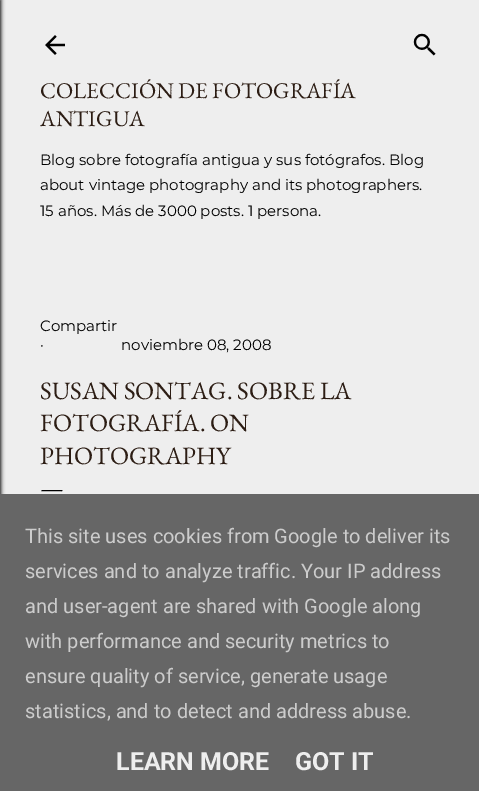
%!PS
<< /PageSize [479 791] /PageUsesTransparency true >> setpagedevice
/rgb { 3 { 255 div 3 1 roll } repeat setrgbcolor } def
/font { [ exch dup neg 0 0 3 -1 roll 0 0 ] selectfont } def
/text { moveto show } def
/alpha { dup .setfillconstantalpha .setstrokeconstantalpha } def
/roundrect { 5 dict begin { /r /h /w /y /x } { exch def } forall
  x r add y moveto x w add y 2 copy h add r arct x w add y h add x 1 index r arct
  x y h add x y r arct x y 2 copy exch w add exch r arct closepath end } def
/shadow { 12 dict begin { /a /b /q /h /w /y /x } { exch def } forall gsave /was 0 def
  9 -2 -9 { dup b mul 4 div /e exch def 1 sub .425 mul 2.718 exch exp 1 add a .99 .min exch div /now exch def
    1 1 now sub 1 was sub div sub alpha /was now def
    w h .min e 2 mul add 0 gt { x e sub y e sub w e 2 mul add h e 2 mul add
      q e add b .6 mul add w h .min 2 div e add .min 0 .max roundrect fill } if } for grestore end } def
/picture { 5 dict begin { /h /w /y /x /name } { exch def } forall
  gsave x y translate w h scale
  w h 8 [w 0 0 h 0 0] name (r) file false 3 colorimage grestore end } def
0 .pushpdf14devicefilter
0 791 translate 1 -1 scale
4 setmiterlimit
238 238 238 rgb
0 0 479 791 rectfill
0 0 0 rgb
-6 0 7 791 0 2 1 shadow
(img_01.rgb) 45 35 20 20 picture
(img_02.rgb) 413 33 23 23 picture
102 102 102 rgb
0 494 479 297 rectfill
/EBGaramond-Regular 22.5 font
44 29 20 rgb
(COLECCIÓN DE FOTOGRAFÍA) 40 98 text
(ANTIGUA) 40 126 text
/Montserrat-Regular 15 font
0 0 0 rgb
(Blog sobre fotografía antigua y sus fotógrafos. Blog) 40 165 text
(about vintage photography and its photographers.) 40 190 text
(15 años. Más de 3000 posts. 1 persona.) 40 216 text
(Compartir) 40 331 text
(·) 40 350 text
(noviembre 08, 2008) 121 350 text
/EBGaramond-Regular 25 font
44 29 20 rgb
(SUSAN SONTAG. SOBRE LA) 40 399 text
(FOTOGRAFÍA. ON) 40 431 text
(PHOTOGRAPHY) 40 464 text
0 0 0 rgb
(—) 40 496 text
/Roboto-Regular 20 font
204 204 204 rgb
(This site uses cookies from Google to deliver its) 25 543 text
(services and to analyze traffic. Your IP address) 25 578 text
(and user-agent are shared with Google along) 25 613 text
(with performance and security metrics to) 25 648 text
(ensure quality of service, generate usage) 25 683 text
(statistics, and to detect and address abuse.) 25 718 text
/Roboto-Bold 25 font
238 238 238 rgb
(LEARN MORE) 116 770 text
(GOT IT) 295 770 text
.poppdf14devicefilter showpage
